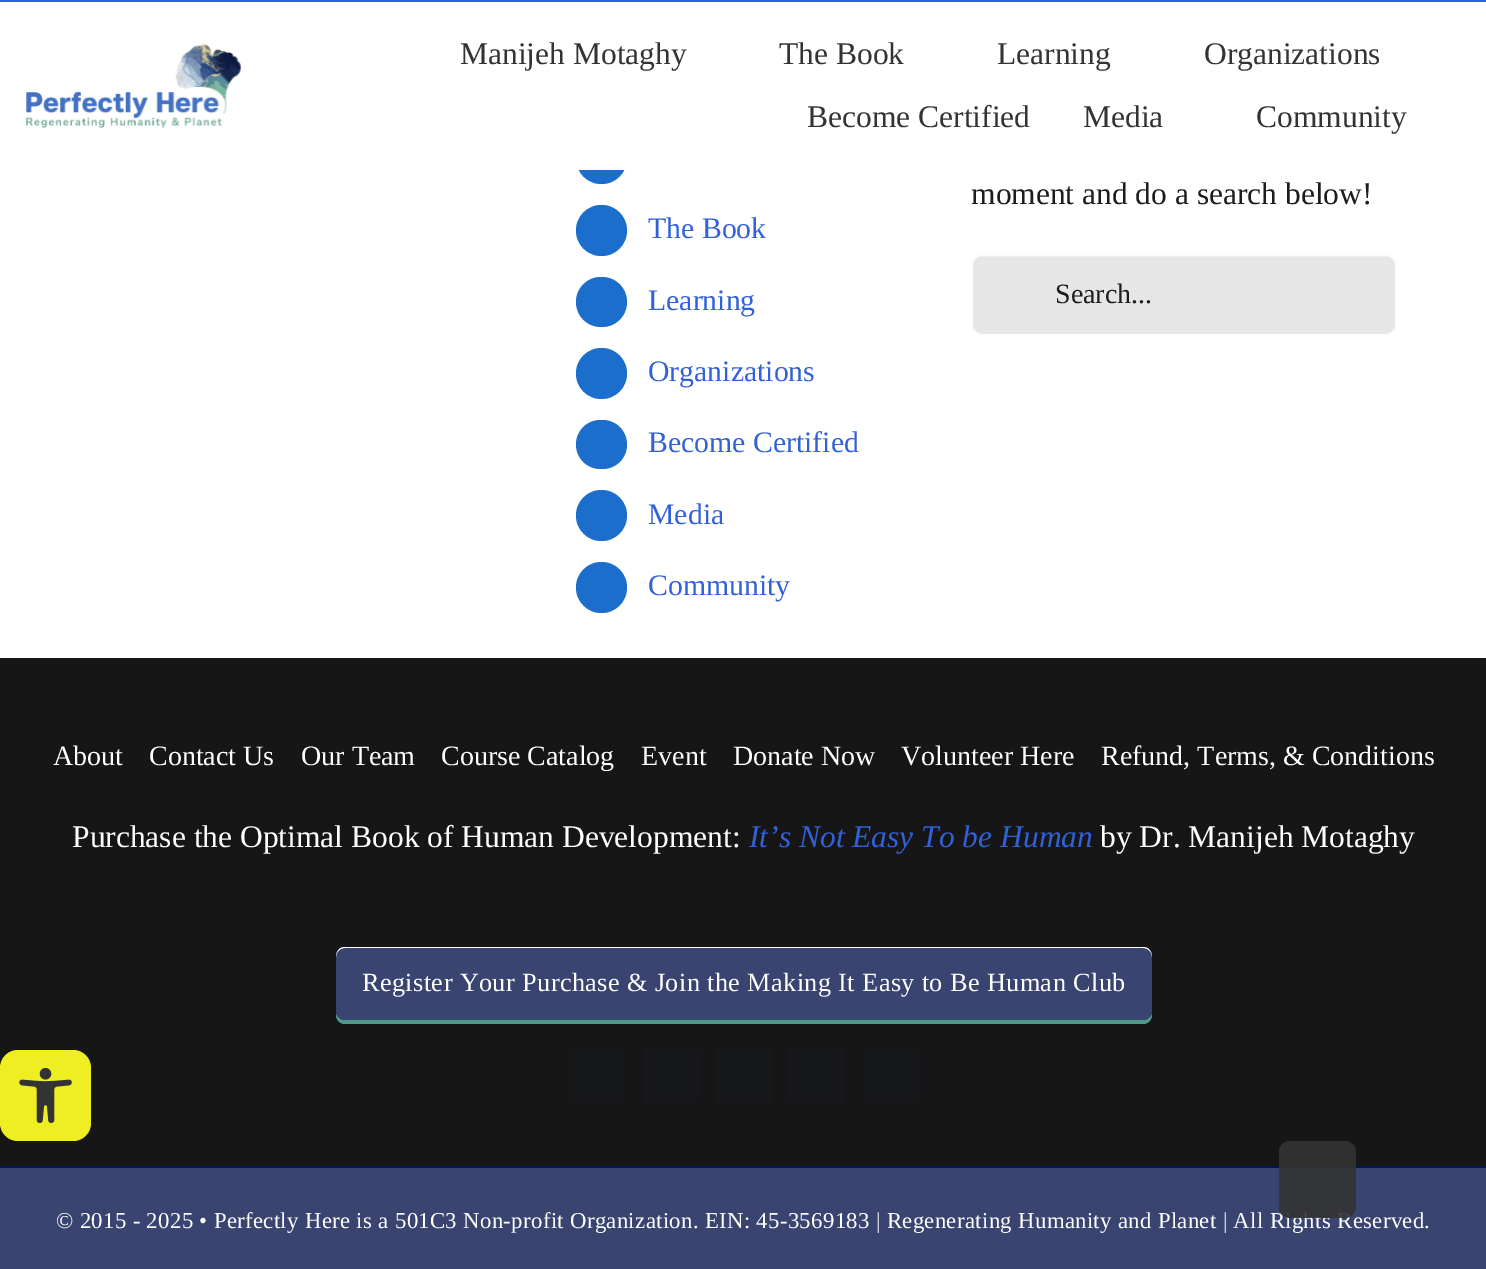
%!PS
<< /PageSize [1486 1269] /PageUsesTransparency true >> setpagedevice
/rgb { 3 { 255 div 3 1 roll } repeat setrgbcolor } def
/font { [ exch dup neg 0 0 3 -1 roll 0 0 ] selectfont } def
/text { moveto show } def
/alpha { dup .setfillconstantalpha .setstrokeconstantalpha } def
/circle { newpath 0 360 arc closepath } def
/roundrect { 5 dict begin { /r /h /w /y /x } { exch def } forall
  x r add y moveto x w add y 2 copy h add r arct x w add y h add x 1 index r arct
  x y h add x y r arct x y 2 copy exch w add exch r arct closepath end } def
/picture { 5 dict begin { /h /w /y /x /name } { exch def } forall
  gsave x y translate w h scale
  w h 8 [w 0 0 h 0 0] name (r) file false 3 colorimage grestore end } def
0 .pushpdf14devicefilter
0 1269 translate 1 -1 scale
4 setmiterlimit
255 255 255 rgb
0 0 1486 1269 rectfill
22 22 22 rgb
0 658 1486 508 rectfill
238 238 34 rgb
0 1050 91 91 18 roundrect fill
(img_01.rgb) 19 1068 53 56 picture
28 110 204 rgb
601.5 158.5 25.5 circle fill
255 255 255 rgb
576 133 51 37 rectfill
49 97 216 rgb
0 0 1486 2 rectfill
(img_02.rgb) 26 43 215 85 picture
28 110 204 rgb
601.5 230.5 25.5 circle fill
576 277 51 50 25 roundrect fill
601.5 373.5 25.5 circle fill
576 420 51 49 24.5 roundrect fill
601.5 515.5 25.5 circle fill
601.5 587.5 25.5 circle fill
230 230 230 rgb
972 255 424 80 10 roundrect gsave fill grestore
252 252 252 rgb
2 setlinewidth
stroke
79 153 134 rgb
336 1012 moveto 0 3 rlineto 0 5 4 9 9 9 rcurveto 798 0 rlineto 5 0 9 -4 9 -9 rcurveto 0 -56 rlineto 0 -3 rlineto 0 56 rlineto 0 4 -4 8 -9 8 rcurveto -798 0 rlineto -5 0 -9 -4 -9 -8 rcurveto closepath fill
57 68 113 rgb
336 947 816 73 9 roundrect fill
255 255 255 rgb
345 948 moveto 798 0 rlineto 5 0 9 4 9 9 rcurveto 0 -5 -3 -10 -9 -10 rcurveto -798 0 rlineto -6 0 -9 5 -9 10 rcurveto 0 -5 4 -9 9 -9 rcurveto closepath fill
23 24 28 rgb
569 1047 56 56 7 roundrect fill
642 1047 56 56 7 roundrect fill
716 1047 56 56 7 roundrect fill
789 1047 56 56 7 roundrect fill
863 1047 56 56 7 roundrect fill
57 68 113 rgb
0 1168 1486 101 rectfill
1 24 86 rgb
0 1166 1486 2 rectfill
/LiberationSerif-Regular 31.5 font
51 51 51 rgb
(Manijeh Motaghy) 460 64 text
(The Book) 779 64 text
(Learning) 997 64 text
(Organizations) 1204 64 text
(Become Certified) 807 127 text
(Media) 1083 127 text
(Community) 1256 127 text
/LiberationSerif-Regular 29.75 font
49 97 216 rgb
(The Book) 648 238 text
(Learning) 648 310 text
(Organizations) 648 381 text
(Become Certified) 648 452 text
(Media) 648 524 text
(Community) 648 595 text
/LiberationSerif-Regular 31.5 font
28 28 28 rgb
(moment and do a search below!) 971 204 text
/LiberationSerif-Regular 28 font
(Search...) 1055 303 text
255 255 255 rgb
(About) 53 765 text
(Contact Us) 149 765 text
(Our Team) 301 765 text
(Course Catalog) 441 765 text
(Event) 641 765 text
(Donate Now) 733 765 text
(Volunteer Here) 901 765 text
(Refund, Terms, & Conditions) 1101 765 text
/LiberationSerif-Regular 31.5 font
(Purchase the Optimal Book of Human Development:) 72 847 text
/LiberationSerif-Italic 31.5 font
49 97 216 rgb
(It’s Not Easy To be Human) 749 847 text
/LiberationSerif-Regular 31.5 font
255 255 255 rgb
(by Dr. Manijeh Motaghy) 1100 847 text
/LiberationSerif-Regular 26.25 font
362 991 moveto 0.4 0 (Register Your Purchase & Join the Making It Easy to Be Human Club) ashow
/LiberationSerif-Regular 22.75 font
56 1228 moveto 0.34 0 (© 2015 - 2025 • Perfectly Here is a 501C3 Non-profit Organization. EIN: 45-3569183 | Regenerating Humanity and Planet | All Rights Reserved.) ashow
0.9 alpha
51 51 51 rgb
1279 1141 77 77 11 roundrect fill
.poppdf14devicefilter showpage
